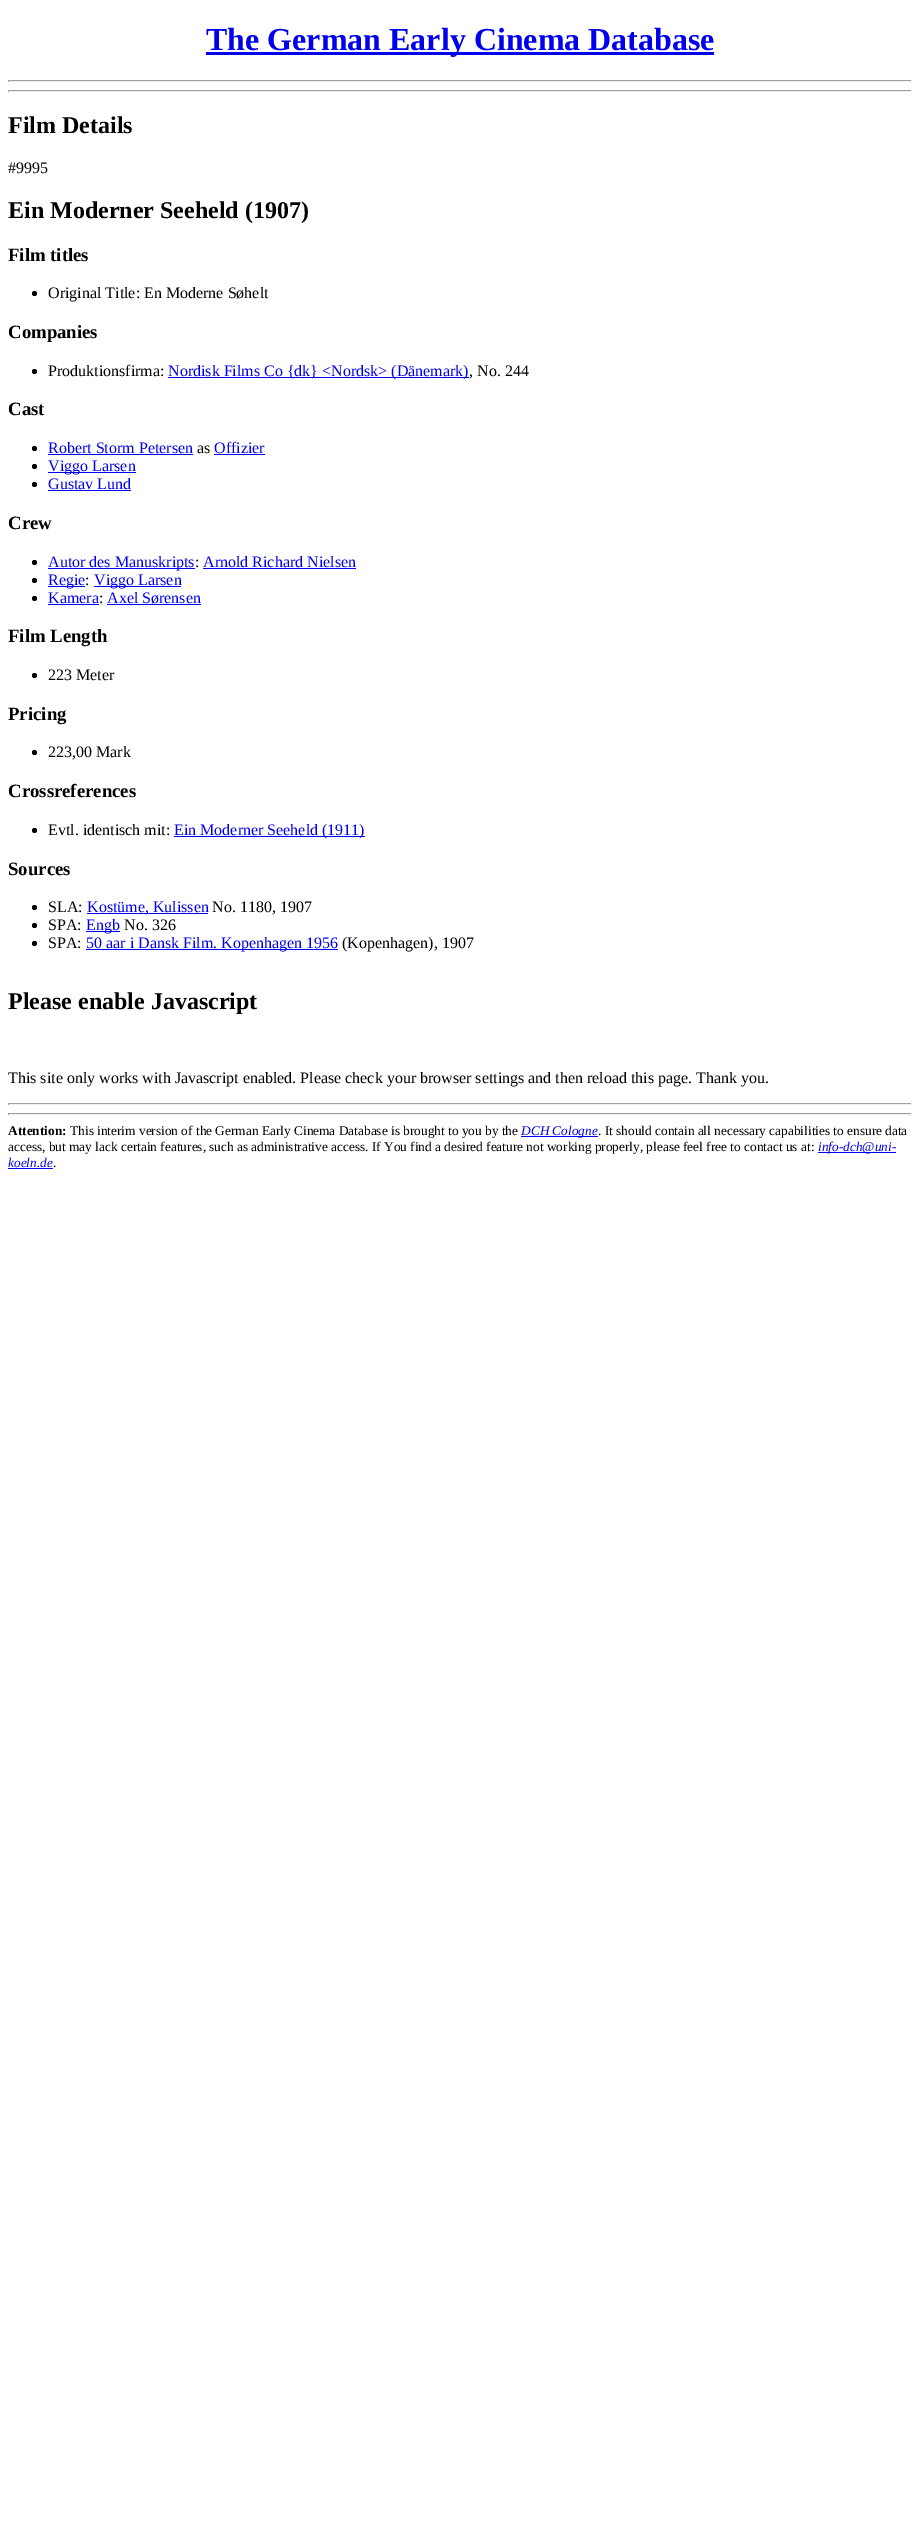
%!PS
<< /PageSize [920 2542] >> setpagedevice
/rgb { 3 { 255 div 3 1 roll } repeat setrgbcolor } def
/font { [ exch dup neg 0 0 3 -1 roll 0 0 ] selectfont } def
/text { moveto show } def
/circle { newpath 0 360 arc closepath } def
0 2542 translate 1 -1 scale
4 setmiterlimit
255 255 255 rgb
0 0 920 2542 rectfill
0 0 238 rgb
206 52 508 3 rectfill
159 159 159 rgb
8 80 904 1 rectfill
238 238 238 rgb
911 80 1 2 rectfill
8 81 904 1 rectfill
159 159 159 rgb
8 80 1 2 rectfill
8 90 904 1 rectfill
238 238 238 rgb
911 90 1 2 rectfill
8 91 904 1 rectfill
159 159 159 rgb
8 90 1 2 rectfill
0 0 0 rgb
34.5 293.5 2.5 circle fill
34.5 371.5 2.5 circle fill
0 0 238 rgb
168 377 301 1 rectfill
0 0 0 rgb
34.5 448.5 2.5 circle fill
0 0 238 rgb
48 454 145 1 rectfill
214 454 51 1 rectfill
0 0 0 rgb
34.5 466.5 2.5 circle fill
0 0 238 rgb
48 472 88 1 rectfill
0 0 0 rgb
34.5 484.5 2.5 circle fill
0 0 238 rgb
48 490 83 1 rectfill
0 0 0 rgb
34.5 562.5 2.5 circle fill
0 0 238 rgb
48 568 147 1 rectfill
203 568 153 1 rectfill
0 0 0 rgb
34.5 580.5 2.5 circle fill
0 0 238 rgb
48 586 37 1 rectfill
94 586 87 1 rectfill
0 0 0 rgb
34.5 598.5 2.5 circle fill
0 0 238 rgb
48 604 51 1 rectfill
107 604 94 1 rectfill
0 0 0 rgb
34.5 675.5 2.5 circle fill
34.5 752.5 2.5 circle fill
34.5 830.5 2.5 circle fill
0 0 238 rgb
174 836 191 1 rectfill
0 0 0 rgb
34.5 907.5 2.5 circle fill
0 0 238 rgb
87 913 121 1 rectfill
0 0 0 rgb
34.5 925.5 2.5 circle fill
0 0 238 rgb
86 931 34 1 rectfill
0 0 0 rgb
34.5 943.5 2.5 circle fill
0 0 238 rgb
86 949 252 1 rectfill
159 159 159 rgb
8 1103 904 1 rectfill
238 238 238 rgb
911 1103 1 2 rectfill
8 1104 904 1 rectfill
159 159 159 rgb
8 1103 1 2 rectfill
8 1113 904 1 rectfill
238 238 238 rgb
911 1113 1 2 rectfill
8 1114 904 1 rectfill
159 159 159 rgb
8 1113 1 2 rectfill
0 0 238 rgb
521 1136 77 1 rectfill
818 1152 78 1 rectfill
8 1168 45 1 rectfill
/LiberationSerif-Bold 32 font
(The German Early Cinema Database) 206 50 text
/LiberationSerif-Bold 24 font
0 0 0 rgb
(Film Details) 8 133 text
/LiberationSerif-Regular 16 font
(#9995) 8 173 text
/LiberationSerif-Bold 24 font
(Ein Moderner Seeheld \(1907\)) 8 218 text
/LiberationSerif-Bold 18.75 font
(Film titles) 8 261 text
/LiberationSerif-Regular 16 font
(Original Title: En Moderne Søhelt) 48 298 text
/LiberationSerif-Bold 18.75 font
(Companies) 8 338 text
/LiberationSerif-Regular 16 font
(Produktionsfirma:) 48 376 text
0 0 238 rgb
(Nordisk Films Co {dk} <Nordsk> \(Dänemark\)) 168 376 text
0 0 0 rgb
(, No. 244) 469 376 text
/LiberationSerif-Bold 18.75 font
(Cast) 8 415 text
/LiberationSerif-Regular 16 font
0 0 238 rgb
(Robert Storm Petersen) 48 453 text
0 0 0 rgb
(as) 197 453 text
0 0 238 rgb
(Offizier) 214 453 text
(Viggo Larsen) 48 471 text
(Gustav Lund) 48 489 text
/LiberationSerif-Bold 18.75 font
0 0 0 rgb
(Crew) 8 529 text
/LiberationSerif-Regular 16 font
0 0 238 rgb
(Autor des Manuskripts) 48 567 text
0 0 0 rgb
(:) 195 567 text
0 0 238 rgb
(Arnold Richard Nielsen) 203 567 text
(Regie) 48 585 text
0 0 0 rgb
(:) 85 585 text
0 0 238 rgb
(Viggo Larsen) 94 585 text
(Kamera) 48 603 text
0 0 0 rgb
(:) 99 603 text
0 0 238 rgb
(Axel Sørensen) 107 603 text
/LiberationSerif-Bold 18.75 font
0 0 0 rgb
(Film Length) 8 642 text
/LiberationSerif-Regular 16 font
(223 Meter) 48 680 text
/LiberationSerif-Bold 18.75 font
(Pricing) 8 720 text
/LiberationSerif-Regular 16 font
(223,00 Mark) 48 757 text
/LiberationSerif-Bold 18.75 font
(Crossreferences) 8 797 text
/LiberationSerif-Regular 16 font
(Evtl. identisch mit:) 48 835 text
0 0 238 rgb
(Ein Moderner Seeheld \(1911\)) 174 835 text
/LiberationSerif-Bold 18.75 font
0 0 0 rgb
(Sources) 8 875 text
/LiberationSerif-Regular 16 font
(SLA:) 48 912 text
0 0 238 rgb
(Kostüme, Kulissen) 87 912 text
0 0 0 rgb
(No. 1180, 1907) 212 912 text
(SPA:) 48 930 text
0 0 238 rgb
(Engb) 86 930 text
0 0 0 rgb
(No. 326) 124 930 text
(SPA:) 48 948 text
0 0 238 rgb
(50 aar i Dansk Film. Kopenhagen 1956) 86 948 text
0 0 0 rgb
(\(Kopenhagen\), 1907) 342 948 text
/LiberationSerif-Bold 24 font
(Please enable Javascript) 8 1009 text
/LiberationSerif-Regular 16 font
(This site only works with Javascript enabled. Please check your browser settings and then reload this page. Thank you.) 8 1083 text
/LiberationSerif-Bold 13.33 font
(Attention:) 8 1135 text
/LiberationSerif-Regular 13.33 font
(This interim version of the German Early Cinema Database is brought to you by the) 70 1135 text
/LiberationSerif-Italic 13.33 font
0 0 238 rgb
(DCH Cologne) 521 1135 text
/LiberationSerif-Regular 13.33 font
0 0 0 rgb
(. It should contain all necessary capabilities to ensure data) 598 1135 text
(access, but may lack certain features, such as administrative access. If You find a desired feature not working properly, please feel free to contact us at:) 8 1151 text
/LiberationSerif-Italic 13.33 font
0 0 238 rgb
(info-dch@uni-) 818 1151 text
(koeln.de) 8 1167 text
/LiberationSerif-Regular 13.33 font
0 0 0 rgb
(.) 53 1167 text
showpage
